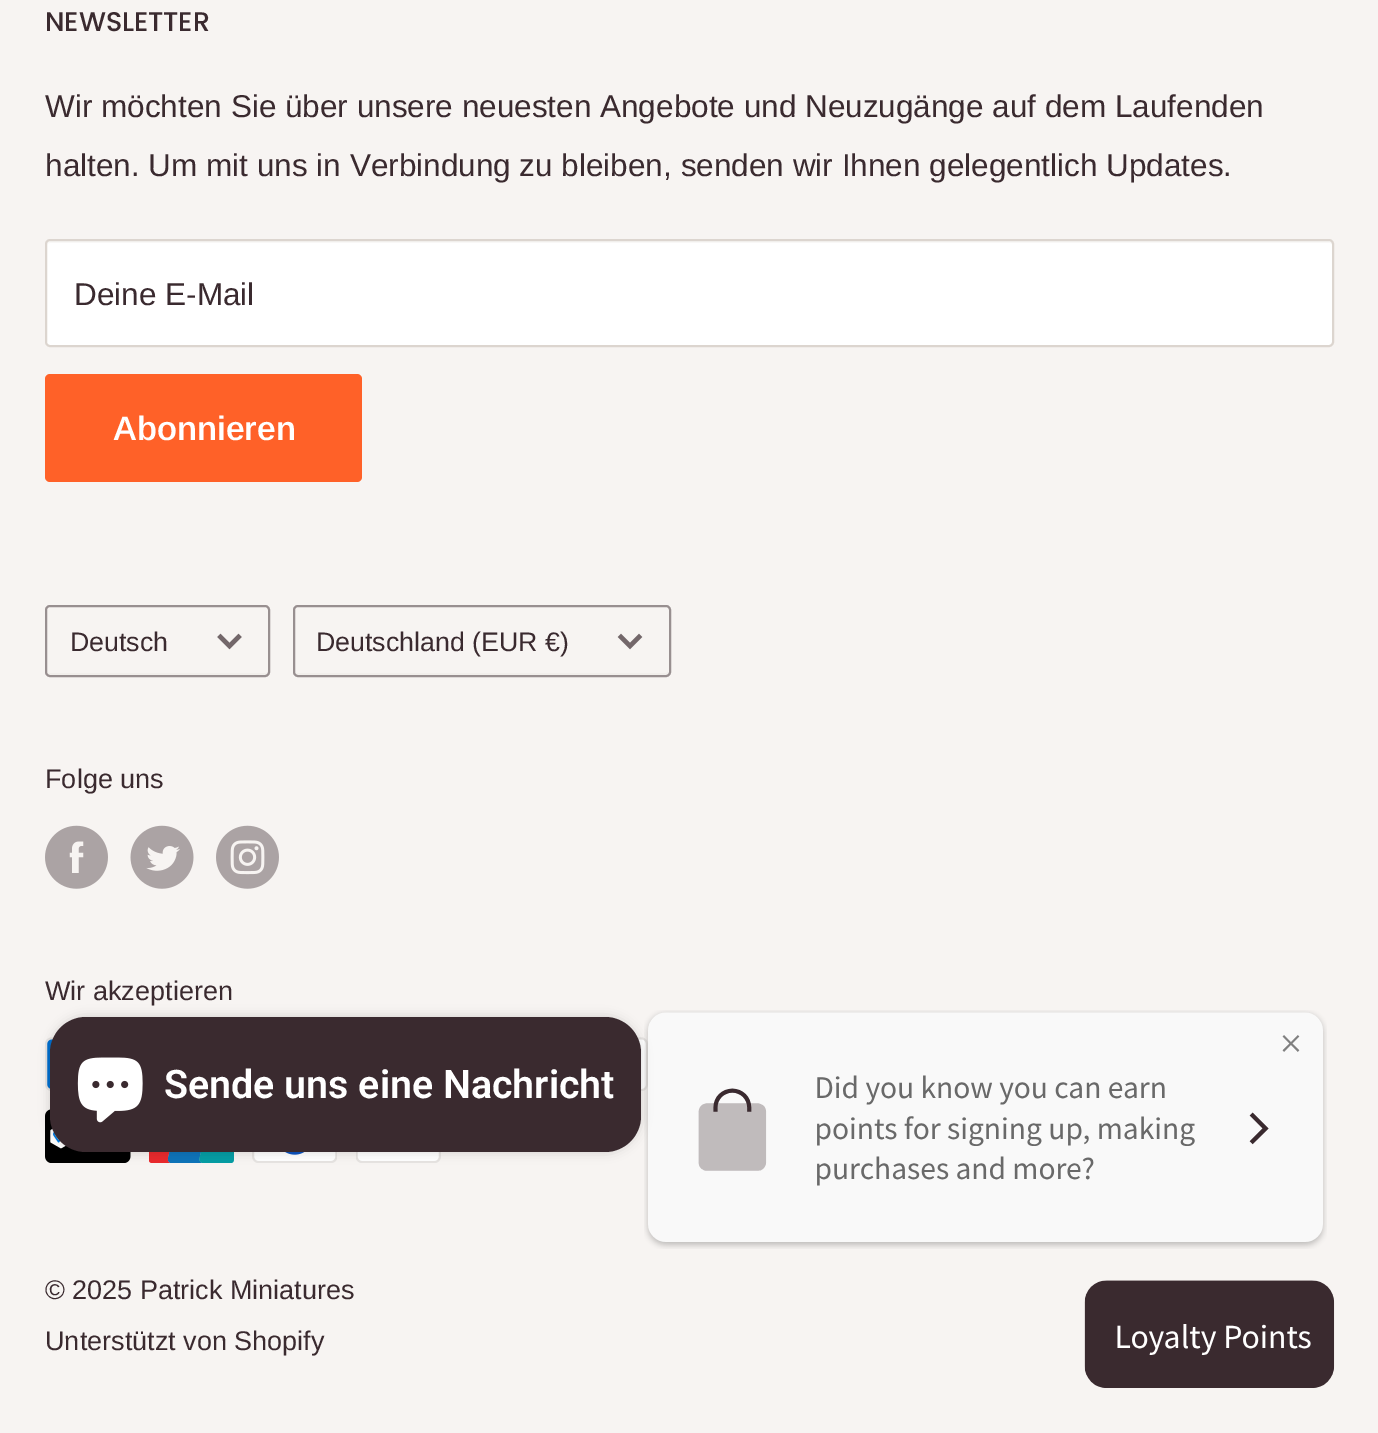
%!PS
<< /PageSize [1378 1433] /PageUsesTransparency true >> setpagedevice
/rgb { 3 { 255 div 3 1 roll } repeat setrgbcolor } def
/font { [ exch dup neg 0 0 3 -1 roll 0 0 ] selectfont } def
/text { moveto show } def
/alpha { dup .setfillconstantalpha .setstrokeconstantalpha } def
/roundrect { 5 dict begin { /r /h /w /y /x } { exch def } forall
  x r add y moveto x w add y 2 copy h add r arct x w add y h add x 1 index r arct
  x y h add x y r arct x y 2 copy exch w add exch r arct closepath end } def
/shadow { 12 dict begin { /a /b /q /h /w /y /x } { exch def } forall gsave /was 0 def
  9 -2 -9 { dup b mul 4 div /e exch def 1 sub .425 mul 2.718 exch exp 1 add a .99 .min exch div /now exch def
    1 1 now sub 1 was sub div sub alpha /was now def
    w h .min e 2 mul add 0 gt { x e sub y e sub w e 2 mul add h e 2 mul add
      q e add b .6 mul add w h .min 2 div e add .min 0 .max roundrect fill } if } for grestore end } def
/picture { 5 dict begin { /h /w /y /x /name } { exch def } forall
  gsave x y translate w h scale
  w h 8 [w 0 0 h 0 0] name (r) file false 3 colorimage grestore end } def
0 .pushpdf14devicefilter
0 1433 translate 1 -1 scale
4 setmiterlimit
247 244 242 rgb
0 0 1378 1433 rectfill
255 255 255 rgb
45 239 1289 108 5 roundrect fill
249 248 247 rgb
50 243 moveto 1280 0 rlineto 1 0 2 1 2 2 rcurveto 0 -2 0 -4 -2 -4 rcurveto -1281 0 rlineto -2 0 -2 2 -2 4 rcurveto 0 -1 1 -2 3 -2 rcurveto closepath fill
220 213 207 rgb
2 setlinewidth
46 240 1287 106 4 roundrect stroke
255 97 40 rgb
45 374 317 108 5 roundrect fill
242 239 236 rgb
47 670 moveto 0 2 -1 5 2 5 rcurveto 217 0 rlineto 3 0 2 -3 2 -5 rcurveto 0 2 -1 3 -2 3 rcurveto -216 0 rlineto -2 0 -3 -1 -3 -3 rcurveto closepath fill
0.5 alpha
58 42 47 rgb
46 606 223 70 4 roundrect stroke
1 alpha
115 103 106 rgb
4.5 setlinewidth
2 setlinecap
238.5 637 moveto -9 9 rlineto -9 -9 rlineto stroke
242 239 236 rgb
295 670 moveto 0 3 rlineto 0 1 1 2 2 2 rcurveto 369 0 rlineto 1 0 2 -1 2 -2 rcurveto 0 -3 rlineto 0 2 -1 3 -2 3 rcurveto -369 0 rlineto -1 0 -2 -1 -2 -3 rcurveto closepath fill
152 143 144 rgb
2 setlinewidth
0 setlinecap
294 606 376 70 4 roundrect stroke
115 103 106 rgb
4.5 setlinewidth
2 setlinecap
639 637 moveto -9 9 rlineto -9 -9 rlineto stroke
(img_01.rgb) 45 825 63 64 picture
(img_02.rgb) 130 825 64 64 picture
(img_03.rgb) 216 825 63 64 picture
(img_04.rgb) 45 1037 9 54 picture
(img_05.rgb) 637 1037 11 54 picture
(img_06.rgb) 45 1109 86 54 picture
(img_07.rgb) 149 1152 85 11 picture
(img_08.rgb) 252 1152 85 11 picture
(img_09.rgb) 356 1152 85 11 picture
(img_11.rgb) 644 1010 683 239 picture
0 0 0 rgb
50 1017 591 135 36 5.5 0.15 shadow
58 42 47 rgb
50 1017 591 135 36 roundrect fill
(img_10.rgb) 77 1057 66 66 picture
(img_12.rgb) 1084 1280 251 108 picture
/Poppins-Medium 27 font
(NEWSLETTER) 45 31 text
/Arimo-Regular 31.5 font
(Wir möchten Sie über unsere neuesten Angebote und Neuzugänge auf dem Laufenden) 45 117 text
(halten. Um mit uns in Verbindung zu bleiben, senden wir Ihnen gelegentlich Updates.) 45 176 text
(Deine E-Mail) 74 305 text
/Arimo-SemiBold 33.75 font
255 255 255 rgb
(Abonnieren) 113 440 text
/Arimo-Regular 26.75 font
58 42 47 rgb
(Deutsch) 70 651 text
(Deutschland \(EUR €\)) 316 651 text
/Arimo-Regular 27 font
(Folge uns) 45 788 text
(Wir akzeptieren) 45 1000 text
(© 2025 Patrick Miniatures) 45 1299 text
(Unterstützt von Shopify) 45 1350 text
/Roboto-SemiBold 39.4 font
255 255 255 rgb
(Sende uns eine Nachricht) 164 1098 text
.poppdf14devicefilter showpage
